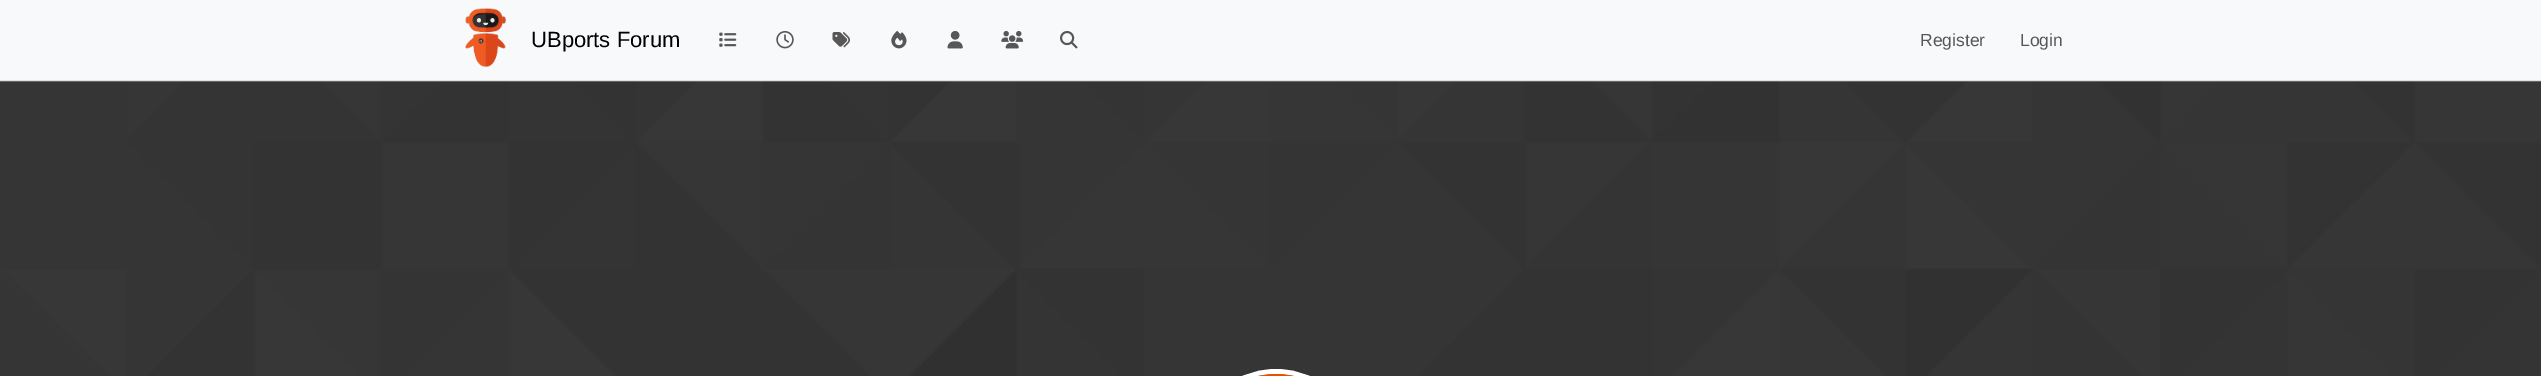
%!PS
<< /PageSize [2541 376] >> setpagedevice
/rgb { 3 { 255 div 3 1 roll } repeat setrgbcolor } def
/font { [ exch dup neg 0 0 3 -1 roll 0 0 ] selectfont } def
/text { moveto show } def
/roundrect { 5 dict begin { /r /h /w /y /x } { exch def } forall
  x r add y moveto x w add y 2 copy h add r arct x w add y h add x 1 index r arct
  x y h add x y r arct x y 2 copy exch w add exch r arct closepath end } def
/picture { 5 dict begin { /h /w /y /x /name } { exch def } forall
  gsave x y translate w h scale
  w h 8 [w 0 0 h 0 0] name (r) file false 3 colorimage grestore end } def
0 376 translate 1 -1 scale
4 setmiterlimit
255 255 255 rgb
0 0 2541 376 rectfill
248 249 250 rgb
0 0 2541 80 rectfill
222 226 230 rgb
0 80 2541 1 rectfill
(img_01.rgb) 465 8 41 60 picture
(img_02.rgb) 719 32 18 15 picture
(img_03.rgb) 776 31 18 18 picture
(img_04.rgb) 832 32 18 16 picture
(img_05.rgb) 891 31 16 18 picture
(img_06.rgb) 947 31 16 18 picture
(img_07.rgb) 1001 31 23 18 picture
(img_08.rgb) 1060 31 18 18 picture
(img_09.rgb) 0 81 2541 295 picture
255 255 255 rgb
5 setlinewidth
1193.5 371.5 165 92 82.5 roundrect stroke
230 81 0 rgb
1196 374 160 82 80 roundrect fill
/LiberationSans-Regular 22 font
0 0 0 rgb
(UBports Forum) 531 47 text
/LiberationSans-Regular 17.5 font
87 87 88 rgb
(Register) 1920 46 text
(Login) 2020 46 text
showpage
